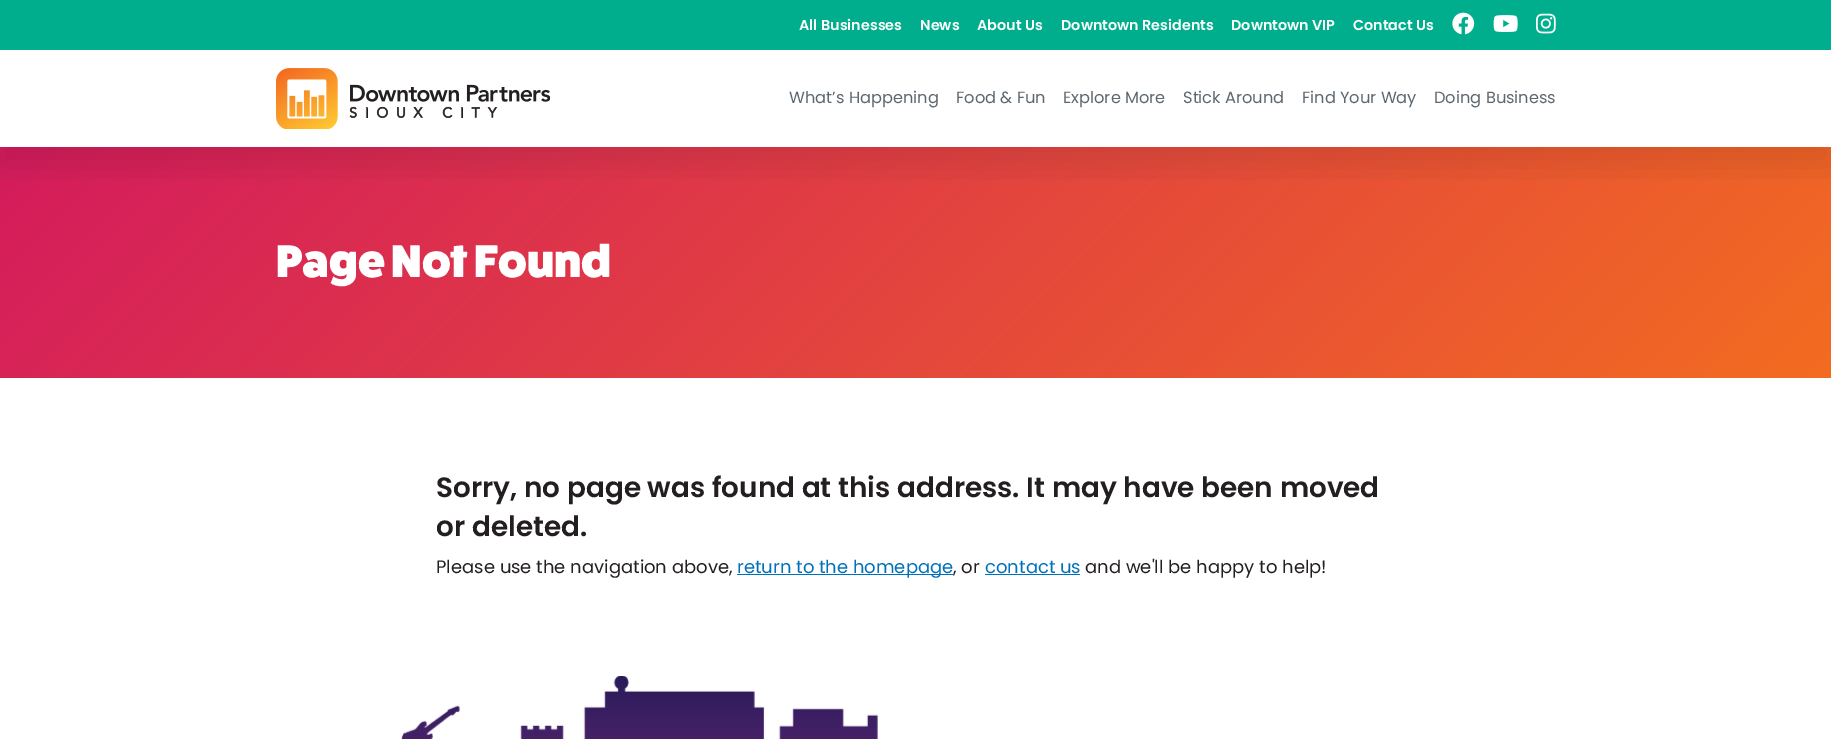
%!PS
<< /PageSize [1831 739] /PageUsesTransparency true >> setpagedevice
/rgb { 3 { 255 div 3 1 roll } repeat setrgbcolor } def
/font { [ exch dup neg 0 0 3 -1 roll 0 0 ] selectfont } def
/text { moveto show } def
/alpha { dup .setfillconstantalpha .setstrokeconstantalpha } def
/roundrect { 5 dict begin { /r /h /w /y /x } { exch def } forall
  x r add y moveto x w add y 2 copy h add r arct x w add y h add x 1 index r arct
  x y h add x y r arct x y 2 copy exch w add exch r arct closepath end } def
/shadow { 12 dict begin { /a /b /q /h /w /y /x } { exch def } forall gsave /was 0 def
  9 -2 -9 { dup b mul 4 div /e exch def 1 sub .425 mul 2.718 exch exp 1 add a .99 .min exch div /now exch def
    1 1 now sub 1 was sub div sub alpha /was now def
    w h .min e 2 mul add 0 gt { x e sub y e sub w e 2 mul add h e 2 mul add
      q e add b .6 mul add w h .min 2 div e add .min 0 .max roundrect fill } if } for grestore end } def
/picture { 5 dict begin { /h /w /y /x /name } { exch def } forall
  gsave x y translate w h scale
  w h 8 [w 0 0 h 0 0] name (r) file false 3 colorimage grestore end } def
0 .pushpdf14devicefilter
0 739 translate 1 -1 scale
4 setmiterlimit
255 255 255 rgb
0 0 1831 739 rectfill
gsave 0 147 moveto 1831 0 rlineto 0 231 rlineto -1831 0 rlineto closepath clip newpath
<< /ShadingType 2 /ColorSpace /DeviceRGB /Coords [400 -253 1431 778] /Extend [true true] /Function << /FunctionType 2 /Domain [0 1] /C0 [0.831 0.106 0.365] /C1 [0.953 0.424 0.129] /N 1 >> >> shfill grestore
gsave
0 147 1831 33 rectclip
0 0 0 rgb
0 18 1831 147 0 18 0.1 shadow
grestore
0 174 141 rgb
0 0 1831 50 rectfill
(img_01.rgb) 1452 12 23 23 picture
(img_02.rgb) 1493 15 25 17 picture
(img_03.rgb) 1536 13 20 21 picture
(img_04.rgb) 276 68 274 61 picture
0 113 185 rgb
737 574 216 1 rectfill
985 574 95 1 rectfill
(img_05.rgb) 401 676 477 63 picture
/Poppins-SemiBold 14.4 font
255 255 255 rgb
(All Businesses) 799 30 text
(News) 920 30 text
(About Us) 977 30 text
(Downtown Residents) 1061 30 text
(Downtown VIP) 1231 30 text
(Contact Us) 1353 30 text
/Poppins-Regular 16.25 font
93 103 112 rgb
(What’s Happening) 789 103 text
(Food & Fun) 956 103 text
(Explore More) 1063 103 text
(Stick Around) 1183 103 text
(Find Your Way) 1302 103 text
(Doing Business) 1434 103 text
/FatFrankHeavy-Black 46 font
255 255 255 rgb
(Page Not Found) 276 277 text
/Poppins-SemiBold 27.9 font
35 31 32 rgb
(Sorry, no page was found at this address. It may have been moved) 436 497 text
(or deleted.) 436 536 text
/Poppins-Regular 18 font
(Please use the navigation above,) 436 573 text
0 113 185 rgb
(return to the homepage) 737 573 text
35 31 32 rgb
(, or) 953 573 text
0 113 185 rgb
(contact us) 985 573 text
35 31 32 rgb
(and we'll be happy to help!) 1085 573 text
.poppdf14devicefilter showpage
